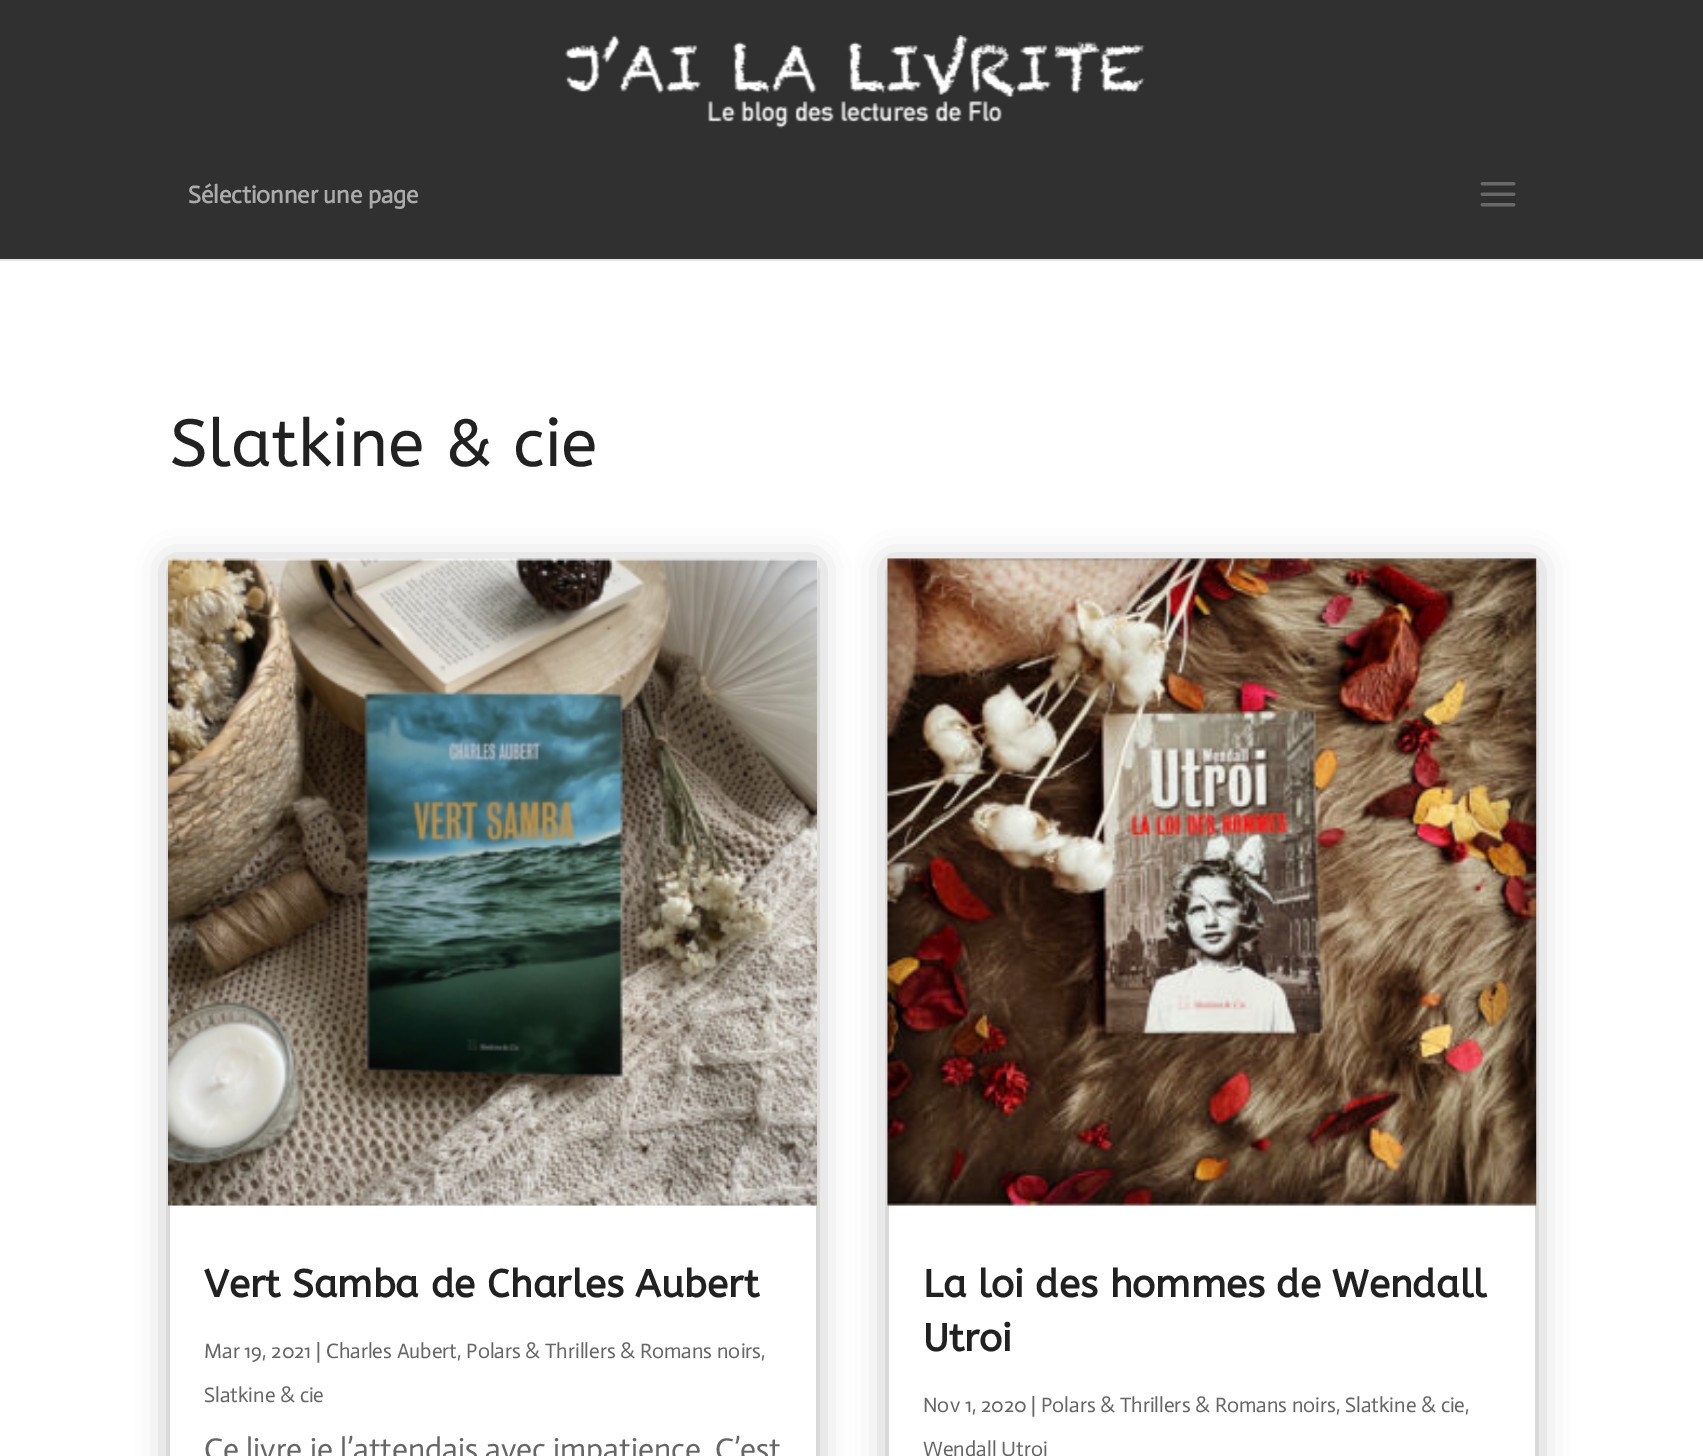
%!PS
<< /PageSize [1703 1456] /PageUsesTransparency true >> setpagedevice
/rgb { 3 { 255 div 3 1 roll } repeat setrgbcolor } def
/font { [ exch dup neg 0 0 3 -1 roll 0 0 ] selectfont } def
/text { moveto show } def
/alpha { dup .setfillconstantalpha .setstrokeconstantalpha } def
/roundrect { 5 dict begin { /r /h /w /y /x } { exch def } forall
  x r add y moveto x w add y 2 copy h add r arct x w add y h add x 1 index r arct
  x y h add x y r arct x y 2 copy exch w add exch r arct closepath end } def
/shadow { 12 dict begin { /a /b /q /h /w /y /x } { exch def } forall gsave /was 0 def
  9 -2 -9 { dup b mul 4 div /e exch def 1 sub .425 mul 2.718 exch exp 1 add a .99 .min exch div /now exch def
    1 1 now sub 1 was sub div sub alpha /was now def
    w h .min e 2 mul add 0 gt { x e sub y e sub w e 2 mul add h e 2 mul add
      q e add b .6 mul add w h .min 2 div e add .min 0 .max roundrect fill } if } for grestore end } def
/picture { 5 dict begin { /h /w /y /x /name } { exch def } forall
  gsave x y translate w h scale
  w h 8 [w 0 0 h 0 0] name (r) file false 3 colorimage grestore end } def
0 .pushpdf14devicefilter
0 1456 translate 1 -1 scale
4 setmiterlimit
255 255 255 rgb
0 0 1703 1456 rectfill
230 230 230 rgb
0 259 moveto 0 2 rlineto 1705 0 rlineto 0 -259 rlineto -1 0 rlineto 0 257 rlineto closepath fill
48 48 48 rgb
0 0 1703 259 rectfill
(img_01.rgb) 564 35 581 94 picture
(img_02.rgb) 1480 182 36 25 picture
0 0 0 rgb
170 564 646 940 0 16 0.3 shadow
255 255 255 rgb
170 1205 646 251 rectfill
(img_03.rgb) 168 558 650 648 picture
0 0 0 rgb
889 564 646 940 0 16 0.3 shadow
255 255 255 rgb
889 1205 646 251 rectfill
(img_04.rgb) 887 558 650 648 picture
/Actor-Bold 24.5 font
171 171 171 rgb
(Sélectionner une page) 188 203 text
/ABeeZee-Regular 66.5 font
33 33 33 rgb
(Slatkine & cie) 170 466 text
/ABeeZee-Bold 38.5 font
(Vert Samba de Charles Aubert) 204 1297 text
/Actor-Regular 21 font
102 102 102 rgb
(Mar 19, 2021 | Charles Aubert, Polars & Thrillers & Romans noirs,) 204 1358 text
(Slatkine & cie) 204 1402 text
/Actor-Regular 31.5 font
(Ce livre je l’attendais avec impatience. C’est) 204 1460 text
/ABeeZee-Bold 38.5 font
33 33 33 rgb
(La loi des hommes de Wendall) 923 1297 text
(Utroi) 923 1351 text
/Actor-Regular 21 font
102 102 102 rgb
(Nov 1, 2020 | Polars & Thrillers & Romans noirs, Slatkine & cie,) 923 1412 text
(Wendall Utroi) 923 1456 text
.poppdf14devicefilter showpage
